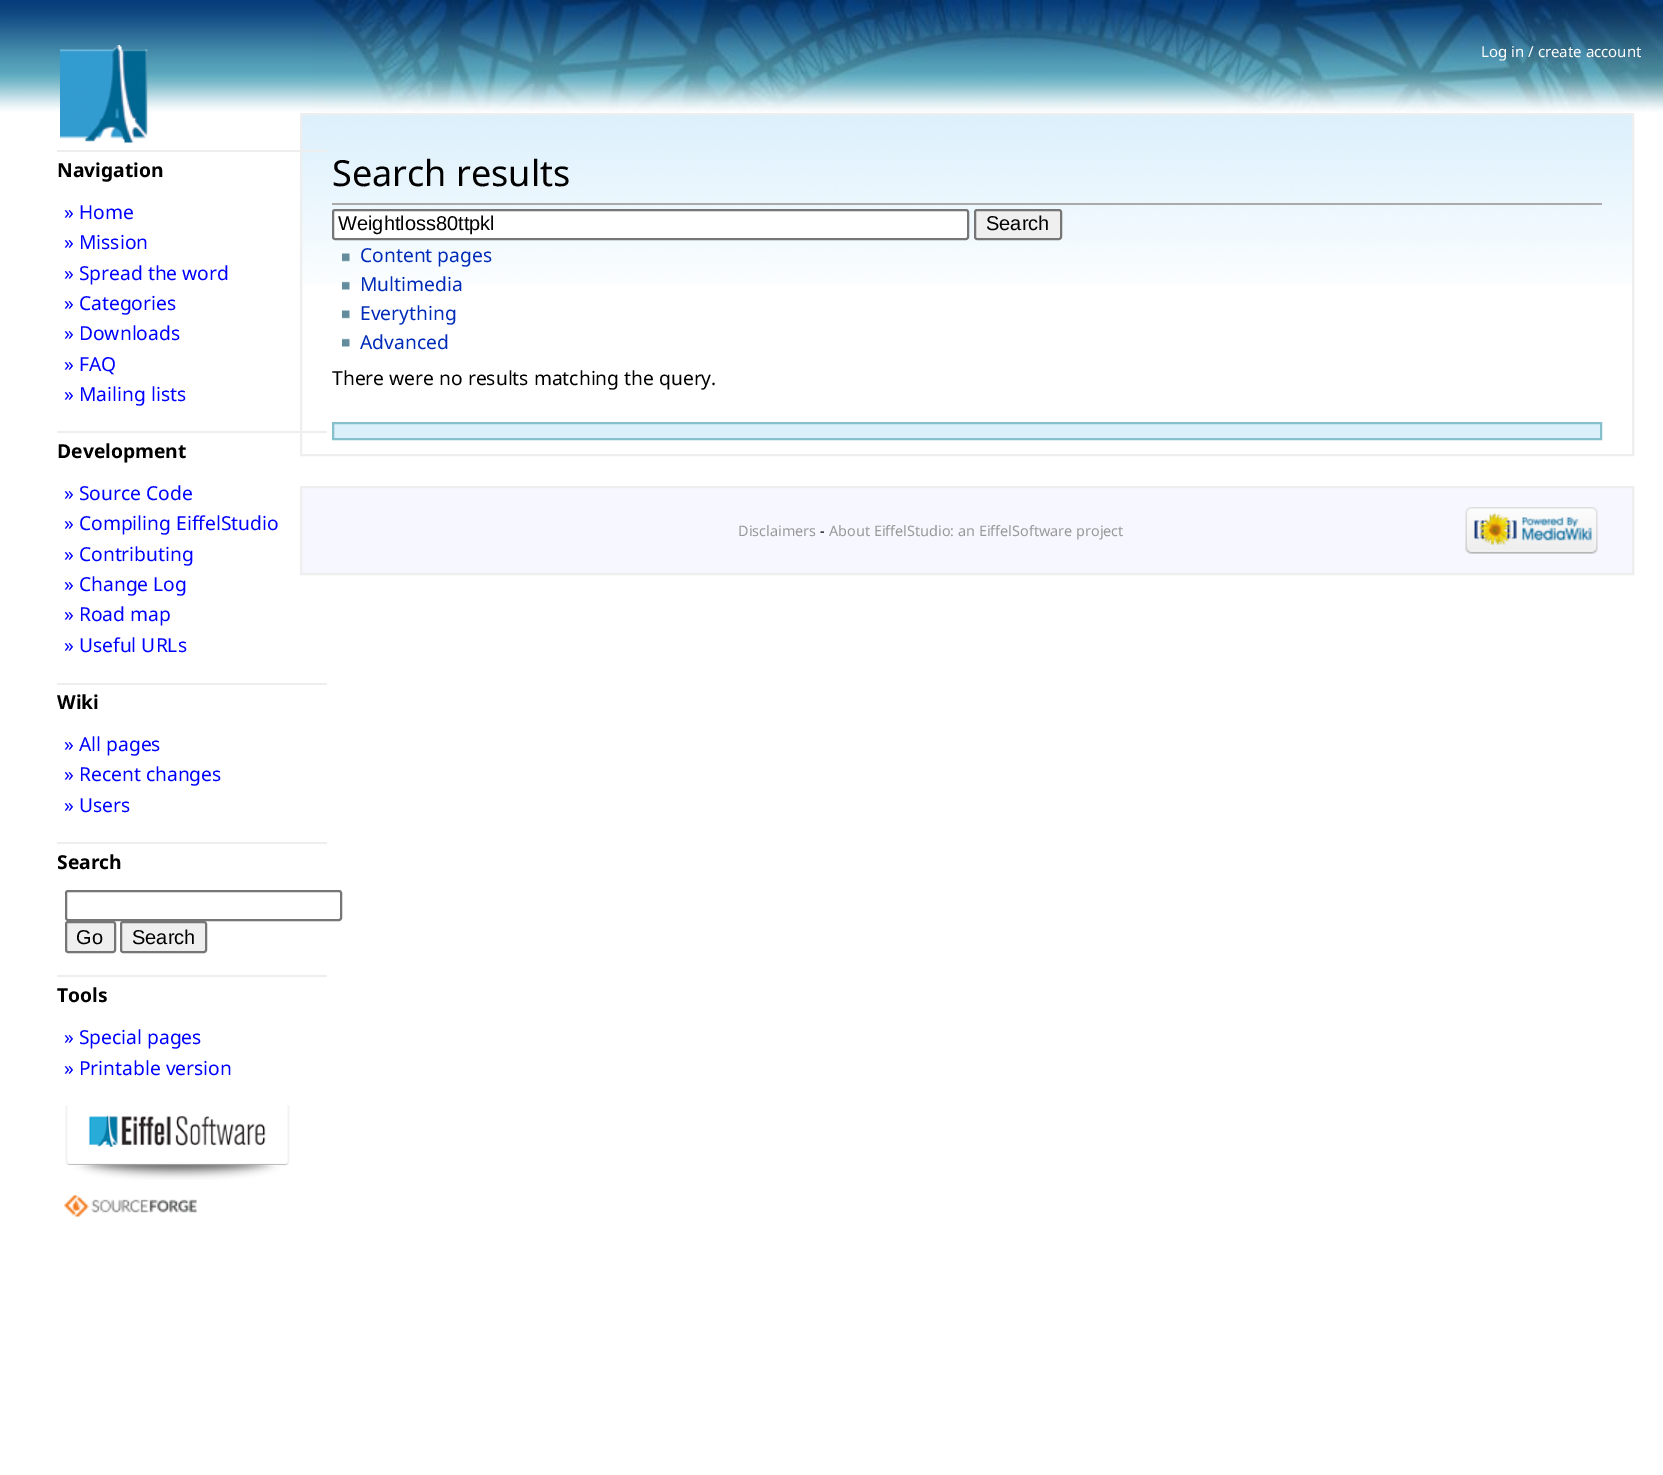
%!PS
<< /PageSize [1663 1475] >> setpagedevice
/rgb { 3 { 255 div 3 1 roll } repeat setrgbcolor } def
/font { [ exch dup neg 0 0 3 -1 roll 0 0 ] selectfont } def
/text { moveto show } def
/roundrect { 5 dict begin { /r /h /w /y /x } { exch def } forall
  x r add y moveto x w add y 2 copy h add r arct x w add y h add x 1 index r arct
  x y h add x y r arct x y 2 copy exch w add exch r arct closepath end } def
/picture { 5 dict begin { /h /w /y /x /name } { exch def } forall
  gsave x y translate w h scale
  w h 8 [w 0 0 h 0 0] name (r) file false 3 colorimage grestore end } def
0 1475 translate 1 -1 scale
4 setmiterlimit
255 255 255 rgb
0 0 1663 1475 rectfill
(img_01.rgb) 0 0 314 112 picture
(img_02.rgb) 60 45 88 98 picture
(img_03.rgb) 313 0 1350 113 picture
(img_06.rgb) 302 115 1330 170 picture
238 238 238 rgb
2 setlinewidth
301 114 1332 341 rectstroke
57 150 270 2 rectfill
57 431 270 2 rectfill
57 683 270 2 rectfill
57 842 270 2 rectfill
118 118 118 rgb
66 891 275 29 2 roundrect stroke
239 239 239 rgb
66 922 49 30 2 roundrect gsave fill grestore
118 118 118 rgb
stroke
239 239 239 rgb
121 922 85 30 2 roundrect gsave fill grestore
118 118 118 rgb
stroke
238 238 238 rgb
57 975 270 2 rectfill
(img_04.rgb) 65 1105 225 75 picture
(img_05.rgb) 64 1195 133 22 picture
170 170 170 rgb
332 203 1270 2 rectfill
255 255 255 rgb
333 210 635 29 2 roundrect gsave fill grestore
118 118 118 rgb
stroke
239 239 239 rgb
975 210 86 29 2 roundrect gsave fill grestore
118 118 118 rgb
stroke
(img_07.rgb) 342 253 8 9 picture
(img_08.rgb) 342 281 8 9 picture
(img_09.rgb) 342 310 8 9 picture
(img_10.rgb) 342 338 8 9 picture
220 240 252 rgb
333 423 moveto 1268 0 rlineto 0 16 rlineto -1268 0 rlineto closepath gsave fill grestore
134 192 204 rgb
stroke
247 247 255 rgb
301 487 moveto 1332 0 rlineto 0 87 rlineto -1332 0 rlineto closepath gsave fill grestore
238 238 238 rgb
stroke
(img_11.rgb) 1465 507 133 47 picture
/NotoSans-Regular 15 font
255 255 255 rgb
(Log in / create account) 1481 57 text
/NotoSans-Bold 19.25 font
0 0 0 rgb
(Navigation) 57 177 text
/NotoSans-Regular 19.25 font
0 0 255 rgb
(» Home) 64 219 text
(» Mission) 64 249 text
(» Spread the word) 64 280 text
(» Categories) 64 310 text
(» Downloads) 64 340 text
(» FAQ) 64 371 text
(» Mailing lists) 64 401 text
/NotoSans-Bold 19.25 font
0 0 0 rgb
(Development) 57 458 text
/NotoSans-Regular 19.25 font
0 0 255 rgb
(» Source Code) 64 500 text
(» Compiling EiffelStudio) 64 530 text
(» Contributing) 64 561 text
(» Change Log) 64 591 text
(» Road map) 64 621 text
(» Useful URLs) 64 652 text
/NotoSans-Bold 19.25 font
0 0 0 rgb
(Wiki) 57 709 text
/NotoSans-Regular 19.25 font
0 0 255 rgb
(» All pages) 64 751 text
(» Recent changes) 64 781 text
(» Users) 64 812 text
/NotoSans-Bold 19.25 font
0 0 0 rgb
(Search) 57 869 text
/LiberationSans-Regular 20 font
(Go) 76 944 text
(Search) 132 944 text
/NotoSans-Bold 19.25 font
(Tools) 57 1002 text
/NotoSans-Regular 19.25 font
0 0 255 rgb
(» Special pages) 64 1044 text
(» Printable version) 64 1075 text
/NotoSans-Regular 36 font
0 0 0 rgb
(Search results) 332 186 text
/LiberationSans-Regular 20 font
(Weightloss80ttpkl) 338 230 text
(Search) 986 230 text
/NotoSans-Regular 19.25 font
0 43 184 rgb
(Content pages) 360 262 text
(Multimedia) 360 291 text
(Everything) 360 320 text
(Advanced) 360 349 text
0 0 0 rgb
(There were no results matching the query.) 332 385 text
/NotoSans-Regular 14.4 font
153 153 153 rgb
(Disclaimers) 738 536 text
0 0 0 rgb
(-) 820 536 text
153 153 153 rgb
(About EiffelStudio: an EiffelSoftware project) 829 536 text
showpage
